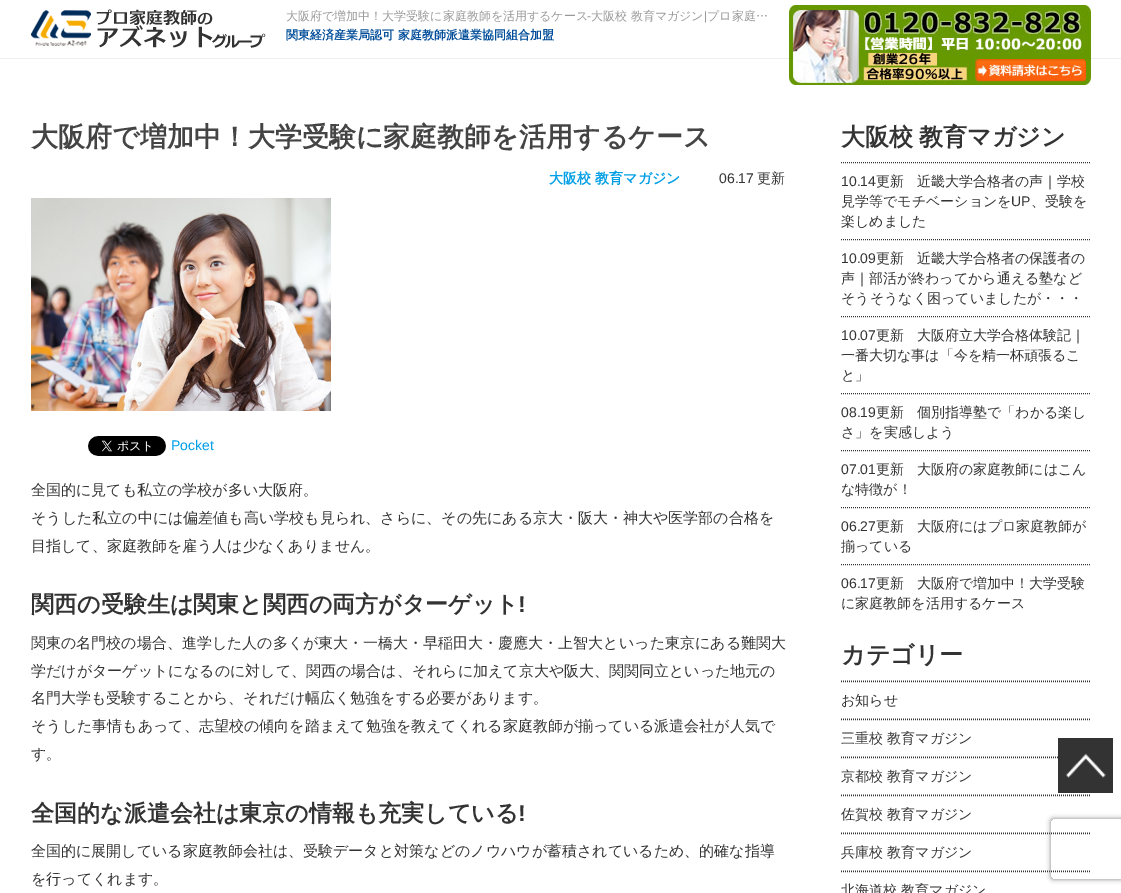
%!PS
<< /PageSize [1121 893] /PageUsesTransparency true >> setpagedevice
/rgb { 3 { 255 div 3 1 roll } repeat setrgbcolor } def
/font { [ exch dup neg 0 0 3 -1 roll 0 0 ] selectfont } def
/text { moveto show } def
/alpha { dup .setfillconstantalpha .setstrokeconstantalpha } def
/roundrect { 5 dict begin { /r /h /w /y /x } { exch def } forall
  x r add y moveto x w add y 2 copy h add r arct x w add y h add x 1 index r arct
  x y h add x y r arct x y 2 copy exch w add exch r arct closepath end } def
/shadow { 12 dict begin { /a /b /q /h /w /y /x } { exch def } forall gsave /was 0 def
  9 -2 -9 { dup b mul 4 div /e exch def 1 sub .425 mul 2.718 exch exp 1 add a .99 .min exch div /now exch def
    1 1 now sub 1 was sub div sub alpha /was now def
    w h .min e 2 mul add 0 gt { x e sub y e sub w e 2 mul add h e 2 mul add
      q e add b .6 mul add w h .min 2 div e add .min 0 .max roundrect fill } if } for grestore end } def
/picture { 5 dict begin { /h /w /y /x /name } { exch def } forall
  gsave x y translate w h scale
  w h 8 [w 0 0 h 0 0] name (r) file false 3 colorimage grestore end } def
0 .pushpdf14devicefilter
0 893 translate 1 -1 scale
4 setmiterlimit
255 255 255 rgb
0 0 1121 893 rectfill
238 238 238 rgb
0 58 1121 1 rectfill
(img_01.rgb) 31 9 235 39 picture
(img_02.rgb) 789 5 302 80 picture
(img_03.rgb) 31 198 300 213 picture
(img_04.rgb) 88 436 78 20 picture
51 51 51 rgb
[1 1] 0 setdash
841 162.5 moveto 250 0 rlineto stroke
841 239.5 moveto 250 0 rlineto stroke
841 316.5 moveto 250 0 rlineto stroke
841 393.5 moveto 250 0 rlineto stroke
841 450.5 moveto 250 0 rlineto stroke
841 507.5 moveto 250 0 rlineto stroke
841 564.5 moveto 250 0 rlineto stroke
153 153 153 rgb
841 680.5 moveto 250 0 rlineto stroke
51 51 51 rgb
841 681.5 moveto 250 0 rlineto stroke
153 153 153 rgb
841 718.5 moveto 250 0 rlineto stroke
51 51 51 rgb
841 719.5 moveto 250 0 rlineto stroke
153 153 153 rgb
841 756.5 moveto 250 0 rlineto stroke
51 51 51 rgb
841 757.5 moveto 250 0 rlineto stroke
153 153 153 rgb
841 794.5 moveto 250 0 rlineto stroke
51 51 51 rgb
841 795.5 moveto 250 0 rlineto stroke
153 153 153 rgb
841 832.5 moveto 250 0 rlineto stroke
51 51 51 rgb
841 833.5 moveto 250 0 rlineto stroke
153 153 153 rgb
841 870.5 moveto 250 0 rlineto stroke
51 51 51 rgb
841 871.5 moveto 250 0 rlineto stroke
1058 738 55 55 rectfill
(img_05.rgb) 1065 753 41 25 picture
gsave
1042 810 moveto 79 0 rlineto 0 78 rlineto -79 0 rlineto closepath 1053 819 moveto 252 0 rlineto 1 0 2 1 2 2 rcurveto 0 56 rlineto 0 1 -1 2 -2 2 rcurveto -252 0 rlineto -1 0 -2 -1 -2 -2 rcurveto 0 -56 rlineto 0 -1 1 -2 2 -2 rcurveto closepath eoclip newpath
128 128 128 rgb
1051 819 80 60 2 2.5 1 shadow
grestore
/WenQuanYiZenHei-Medium 12 font
153 153 153 rgb
(大阪府で増加中！大学受験に家庭教師を活用するケース) 286 20 text
/LiberationSans-Regular 12 font
(-) 587 20 text
/WenQuanYiZenHei-Medium 12 font
(大阪校 教育マガジン) 591 20 text
/LiberationSans-Regular 12 font
(|) 704 20 text
/WenQuanYiZenHei-Medium 12 font
(プロ家庭…) 707 20 text
/WenQuanYiZenHei-Bold 12 font
0 76 153 rgb
(関東経済産業局認可 家庭教師派遣業協同組合加盟) 286 39 text
/WenQuanYiZenHei-Bold 27 font
68 68 68 rgb
(大阪府で増加中！大学受験に家庭教師を活用するケース) 31 146 text
/WenQuanYiZenHei-Bold 14 font
0 158 228 rgb
(大阪校 教育マガジン) 549 183 text
/LiberationSans-Regular 14 font
51 51 51 rgb
(06.17) 719 183 text
/WenQuanYiZenHei-Medium 14 font
(更新) 757 183 text
/LiberationSans-Regular 14 font
0 158 228 rgb
(Pocket) 171 450 text
/WenQuanYiZenHei-Medium 15 font
51 51 51 rgb
(全国的に見ても私立の学校が多い大阪府。) 31 495 text
(そうした私立の中には偏差値も高い学校も見られ、さらに、その先にある京大・阪大・神大や医学部の合格を) 31 523 text
(目指して、家庭教師を雇う人は少なくありません。) 31 551 text
/WenQuanYiZenHei-Bold 23 font
(関西の受験生は関東と関西の両方がターゲット) 31 612 text
/LiberationSans-Bold 23 font
(!) 518 612 text
/WenQuanYiZenHei-Medium 15 font
(関東の名門校の場合、進学した人の多くが東大・一橋大・早稲田大・慶應大・上智大といった東京にある難関大) 31 648 text
(学だけがターゲットになるのに対して、関西の場合は、それらに加えて京大や阪大、関関同立といった地元の) 31 676 text
(名門大学も受験することから、それだけ幅広く勉強をする必要があります。) 31 703 text
(そうした事情もあって、志望校の傾向を踏まえて勉強を教えてくれる家庭教師が揃っている派遣会社が人気で) 31 731 text
(す。) 31 759 text
/WenQuanYiZenHei-Bold 23 font
(全国的な派遣会社は東京の情報も充実している) 31 821 text
/LiberationSans-Bold 23 font
(!) 518 821 text
/WenQuanYiZenHei-Medium 15 font
(全国的に展開している家庭教師会社は、受験データと対策などのノウハウが蓄積されているため、的確な指導) 31 856 text
(を行ってくれます。) 31 884 text
/WenQuanYiZenHei-Bold 24 font
841 145 moveto -1 0 32 (大阪校 教育マガジン) widthshow
/LiberationSans-Regular 14 font
(10.14) 841 186 text
/WenQuanYiZenHei-Medium 14 font
(更新) 876 186 text
(近畿大学合格者の声｜学校) 917 186 text
(見学等でモチベーションを) 841 206 text
/LiberationSans-Regular 14 font
(UP) 1011 206 text
/WenQuanYiZenHei-Medium 14 font
(、受験を) 1031 206 text
(楽しめました) 841 226 text
/LiberationSans-Regular 14 font
(10.09) 841 263 text
/WenQuanYiZenHei-Medium 14 font
(更新) 876 263 text
(近畿大学合格者の保護者の) 917 263 text
(声｜部活が終わってから通える塾など) 841 283 text
(そうそうなく困っていましたが・・・) 841 303 text
/LiberationSans-Regular 14 font
(10.07) 841 340 text
/WenQuanYiZenHei-Medium 14 font
(更新) 876 340 text
(大阪府立大学合格体験記｜) 917 340 text
(一番大切な事は「今を精一杯頑張るこ) 841 360 text
(と」) 841 380 text
/LiberationSans-Regular 14 font
(08.19) 841 417 text
/WenQuanYiZenHei-Medium 14 font
(更新) 876 417 text
(個別指導塾で「わかる楽し) 917 417 text
(さ」を実感しよう) 841 437 text
/LiberationSans-Regular 14 font
(07.01) 841 474 text
/WenQuanYiZenHei-Medium 14 font
(更新) 876 474 text
(大阪府の家庭教師にはこん) 917 474 text
(な特徴が！) 841 494 text
/LiberationSans-Regular 14 font
(06.27) 841 531 text
/WenQuanYiZenHei-Medium 14 font
(更新) 876 531 text
(大阪府にはプロ家庭教師が) 917 531 text
(揃っている) 841 551 text
/LiberationSans-Regular 14 font
(06.17) 841 588 text
/WenQuanYiZenHei-Medium 14 font
(更新) 876 588 text
(大阪府で増加中！大学受験) 917 588 text
(に家庭教師を活用するケース) 841 608 text
/WenQuanYiZenHei-Bold 24 font
(カテゴリー) 841 663 text
/WenQuanYiZenHei-Medium 14 font
(お知らせ) 841 705 text
(三重校 教育マガジン) 841 743 text
(京都校 教育マガジン) 841 781 text
(佐賀校 教育マガジン) 841 819 text
(兵庫校 教育マガジン) 841 857 text
(北海道校 教育マガジン) 841 895 text
.poppdf14devicefilter showpage
